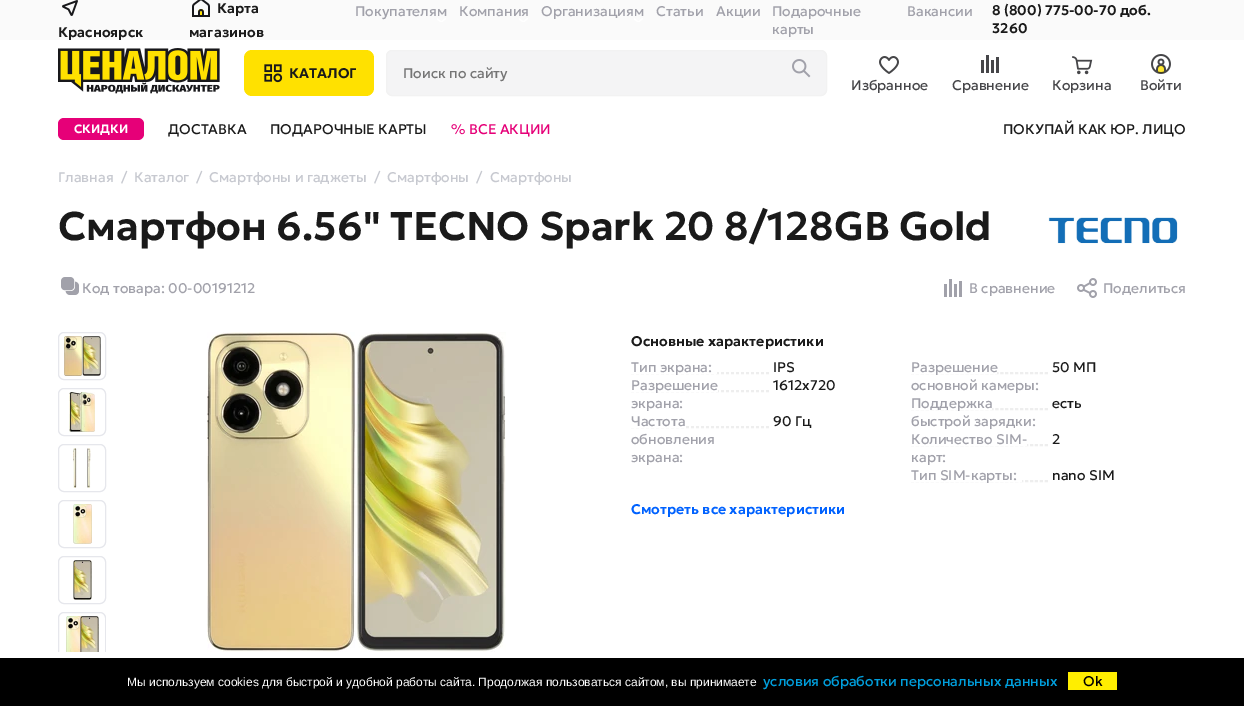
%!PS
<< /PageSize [1244 706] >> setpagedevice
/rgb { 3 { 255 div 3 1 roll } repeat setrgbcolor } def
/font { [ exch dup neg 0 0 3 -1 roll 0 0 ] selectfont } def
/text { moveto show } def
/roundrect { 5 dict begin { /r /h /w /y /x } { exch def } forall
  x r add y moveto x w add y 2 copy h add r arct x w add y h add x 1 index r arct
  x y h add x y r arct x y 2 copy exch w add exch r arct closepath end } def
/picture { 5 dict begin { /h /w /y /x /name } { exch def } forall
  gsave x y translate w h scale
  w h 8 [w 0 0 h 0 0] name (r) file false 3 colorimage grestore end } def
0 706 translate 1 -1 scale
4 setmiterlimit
255 255 255 rgb
0 0 1244 706 rectfill
250 250 250 rgb
0 0 1244 40 rectfill
(img_01.rgb) 62 0 16 16 picture
(img_02.rgb) 192 0 18 17 picture
(img_03.rgb) 437 18 9 4 picture
(img_03.rgb) 519 18 9 4 picture
(img_03.rgb) 634 18 9 4 picture
(img_04.rgb) 58 48 162 46 picture
255 225 0 rgb
244 50 130 46 8 roundrect fill
(img_05.rgb) 264 64 19 19 picture
244 244 245 rgb
386.5 50.5 440 45 5.5 roundrect gsave fill grestore
242 242 242 rgb
stroke
(img_06.rgb) 792 59 19 19 picture
(img_07.rgb) 879 56 20 18 picture
(img_08.rgb) 981 55 18 18 picture
(img_09.rgb) 1072 56 21 19 picture
(img_10.rgb) 1151 54 20 20 picture
230 0 120 rgb
58 118 86 22 6 roundrect fill
(img_11.rgb) 1048 217 130 27 picture
(img_12.rgb) 61 277 18 18 picture
(img_13.rgb) 944 279 18 18 picture
(img_14.rgb) 1077 278 20 20 picture
230 231 236 rgb
58.5 332.5 47 47 5.5 roundrect stroke
(img_15.rgb) 64 336 37 40 picture
58.5 388.5 47 47 5.5 roundrect stroke
(img_16.rgb) 69 392 26 40 picture
58.5 444.5 47 47 5.5 roundrect stroke
(img_17.rgb) 73 448 18 40 picture
58.5 500.5 47 47 5.5 roundrect stroke
(img_18.rgb) 73 504 19 40 picture
58.5 556.5 47 47 5.5 roundrect stroke
(img_19.rgb) 73 560 19 40 picture
gsave
58 332 48 320 rectclip
58.5 612.5 47 47 5.5 roundrect stroke
grestore
(img_20.rgb) 66 616 33 36 picture
(img_21.rgb) 207 332 299 320 picture
238 238 238 rgb
[3 2] 0 setdash
631 372.5 moveto 138 0 rlineto stroke
768 372 1 2 rectfill
631 373.5 moveto 138 0 rlineto stroke
255 255 255 rgb
631 372 86 2 rectfill
238 238 238 rgb
[3 1.96] 0 setdash
911 372.5 moveto 137 0 rlineto stroke
1047 372 1 2 rectfill
911 373.5 moveto 137 0 rlineto stroke
255 255 255 rgb
911 372 86 2 rectfill
238 238 238 rgb
[3 2] 0 setdash
631 390.5 moveto 138 0 rlineto stroke
768 390 1 2 rectfill
631 391.5 moveto 138 0 rlineto stroke
255 255 255 rgb
631 390 87 2 rectfill
238 238 238 rgb
[3 1.96] 0 setdash
911 408.5 moveto 137 0 rlineto stroke
1047 408 1 2 rectfill
911 409.5 moveto 137 0 rlineto stroke
255 255 255 rgb
911 408 81 2 rectfill
238 238 238 rgb
[3 2] 0 setdash
631 426.5 moveto 138 0 rlineto stroke
768 426 1 2 rectfill
631 427.5 moveto 138 0 rlineto stroke
255 255 255 rgb
631 426 53 2 rectfill
238 238 238 rgb
[3 1.96] 0 setdash
911 444.5 moveto 137 0 rlineto stroke
1047 444 1 2 rectfill
911 445.5 moveto 137 0 rlineto stroke
255 255 255 rgb
911 444 116 2 rectfill
238 238 238 rgb
911 480.5 moveto 137 0 rlineto stroke
1047 480 1 2 rectfill
911 481.5 moveto 137 0 rlineto stroke
255 255 255 rgb
911 480 111 2 rectfill
0 0 0 rgb
0 658 1244 48 rectfill
255 238 0 rgb
1068 672 49 18 rectfill
/Geologica-SemiBold 14 font
26 26 26 rgb
(Красноярск) 58 37 text
(Карта) 217 13 text
(магазинов) 189 37 text
/Geologica-Regular 14 font
161 161 170 rgb
(Покупателям) 355 16 text
(Компания) 459 16 text
(Организациям) 541 16 text
(Статьи) 656 16 text
(Акции) 716 16 text
(Подарочные) 772 16 text
(карты) 772 34 text
(Вакансии) 907 16 text
/Geologica-SemiBold 14 font
26 26 26 rgb
(8 \(800\) 775-00-70 доб.) 992 15 text
(3260) 992 33 text
(КАТАЛОГ) 289 78 text
/Geologica-Regular 14 font
117 117 117 rgb
(Поиcк по сайту) 403 78 text
70 70 73 rgb
(Избранное) 851 90 text
(Сравнение) 952 90 text
(Корзина) 1052 90 text
(Войти) 1140 90 text
/Geologica-SemiBold 12 font
255 255 255 rgb
(СКИДКИ) 74 133 text
/Geologica-Regular 14 font
26 26 26 rgb
(ДОСТАВКА) 168 134 text
(ПОДАРОЧНЫЕ КАРТЫ) 270 134 text
230 0 120 rgb
(% ВСЕ АКЦИИ) 451 134 text
26 26 26 rgb
(ПОКУПАЙ КАК ЮР. ЛИЦО) 1003 134 text
199 201 208 rgb
(Главная) 58 182 text
(/) 121 182 text
(Каталог) 134 182 text
(/) 196 182 text
(Смартфоны и гаджеты) 209 182 text
(/) 374 182 text
(Смартфоны) 387 182 text
(/) 476 182 text
(Смартфоны) 490 182 text
/Geologica-SemiBold 40 font
26 26 26 rgb
(Смартфон 6.56" TECNO Spark 20 8/128GB Gold) 58 240 text
/Geologica-Regular 14 font
161 161 170 rgb
(Код товара: 00-00191212) 82 293 text
(В сравнение) 969 293 text
(Поделиться) 1103 293 text
/Geologica-SemiBold 14 font
26 26 26 rgb
(Основные характеристики) 631 346 text
/Geologica-Regular 14 font
161 161 170 rgb
(Тип экрана:) 631 372 text
26 26 26 rgb
(IPS) 773 372 text
161 161 170 rgb
(Разрешение) 911 372 text
(основной камеры:) 911 390 text
26 26 26 rgb
(50 МП) 1052 372 text
161 161 170 rgb
(Разрешение) 631 390 text
(экрана:) 631 408 text
26 26 26 rgb
(1612x720) 773 390 text
161 161 170 rgb
(Поддержка) 911 408 text
(быстрой зарядки:) 911 426 text
26 26 26 rgb
(есть) 1052 408 text
161 161 170 rgb
(Частота) 631 426 text
(обновления) 631 444 text
(экрана:) 631 462 text
26 26 26 rgb
(90 Гц) 773 426 text
161 161 170 rgb
(Количество SIM-) 911 444 text
(карт:) 911 462 text
26 26 26 rgb
(2) 1052 444 text
161 161 170 rgb
(Тип SIM-карты:) 911 480 text
26 26 26 rgb
(nano SIM) 1052 480 text
/Geologica-SemiBold 14 font
0 98 255 rgb
(Смотреть все характеристики) 631 514 text
/LiberationSans-Regular 12 font
255 255 255 rgb
(Мы используем cookies для быстрой и удобной работы сайта. Продолжая пользоваться сайтом, вы принимаете) 127 686 text
/Geologica-Regular 14 font
0 159 221 rgb
(условия обработки персональных данных) 763 686 text
0 0 0 rgb
(Ok) 1083 686 text
showpage
